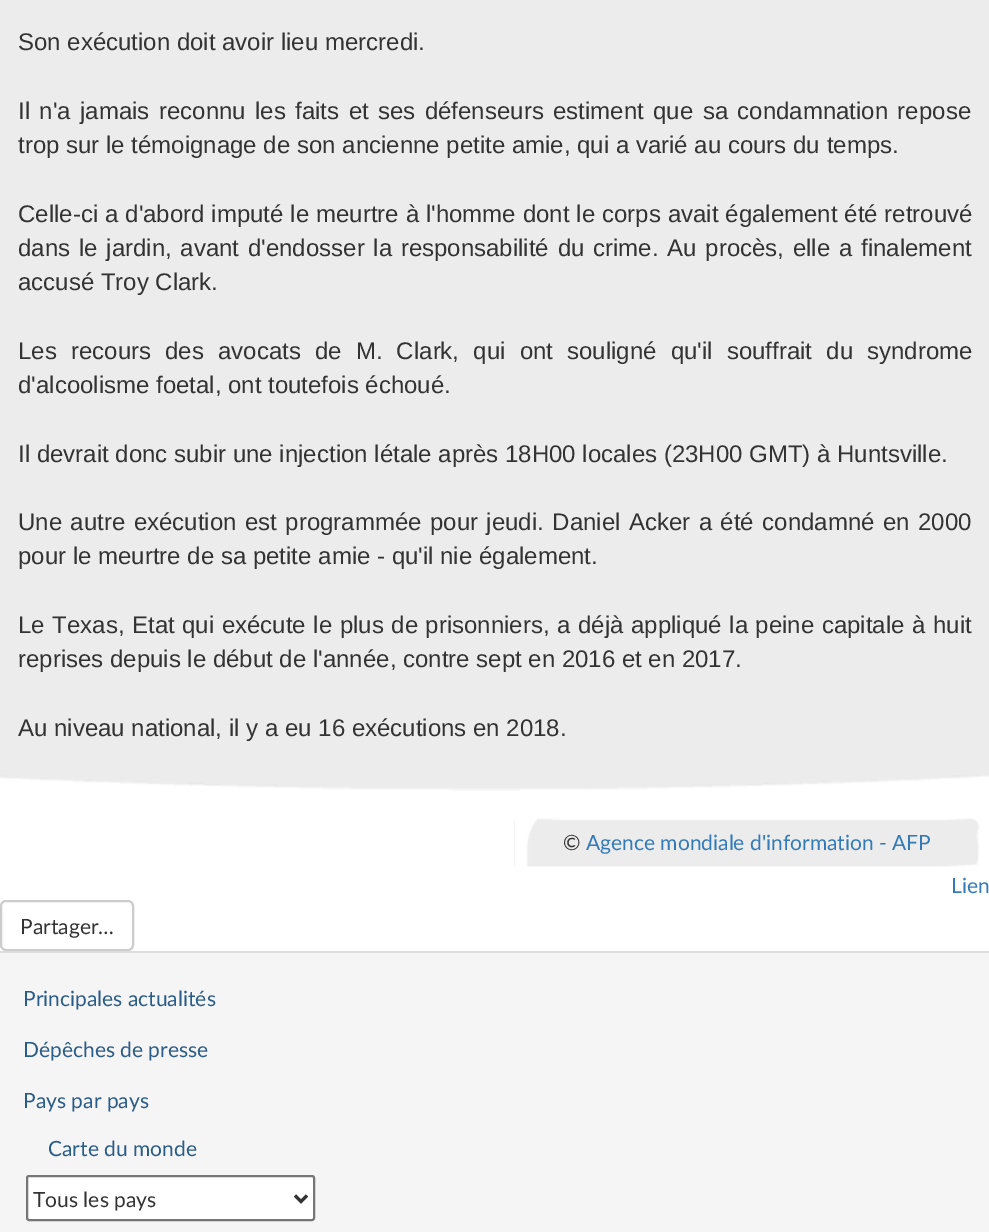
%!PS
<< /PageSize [989 1232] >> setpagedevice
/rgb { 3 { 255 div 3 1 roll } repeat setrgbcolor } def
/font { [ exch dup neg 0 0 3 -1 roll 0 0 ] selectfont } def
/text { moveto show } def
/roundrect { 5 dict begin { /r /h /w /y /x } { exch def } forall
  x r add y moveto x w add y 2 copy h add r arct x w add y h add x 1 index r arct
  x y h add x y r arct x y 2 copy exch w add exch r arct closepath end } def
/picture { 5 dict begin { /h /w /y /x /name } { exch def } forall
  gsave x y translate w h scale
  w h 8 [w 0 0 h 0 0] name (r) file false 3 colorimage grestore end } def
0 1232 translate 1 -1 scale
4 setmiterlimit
255 255 255 rgb
0 0 989 1232 rectfill
236 236 237 rgb
0 0 989 746 rectfill
(img_01.rgb) 0 746 989 45 picture
(img_02.rgb) 514 819 422 48 picture
255 255 255 rgb
515 819 52 48 rectfill
(img_03.rgb) 526 818 41 49 picture
(img_04.rgb) 936 818 44 49 picture
204 204 204 rgb
2 setlinewidth
1 901 132 49 5 roundrect stroke
245 245 245 rgb
0 953 989 279 rectfill
221 221 221 rgb
0 951 989 2 rectfill
255 255 255 rgb
27 1176 287 44 2 roundrect gsave fill grestore
118 118 118 rgb
stroke
51 51 51 rgb
3 setlinewidth
295 1195.5 moveto 6 6 rlineto 6 -6 rlineto stroke
/LiberationSans-Regular 24 font
(Son exécution doit avoir lieu mercredi.) 18 50 text
18 119 moveto 2.75 0 32 (Il n'a jamais reconnu les faits et ses défenseurs estiment que sa condamnation repose) widthshow
(trop sur le témoignage de son ancienne petite amie, qui a varié au cours du temps.) 18 153 text
18 222 moveto 0.25 0 32 (Celle-ci a d'abord imputé le meurtre à l'homme dont le corps avait également été retrouvé) widthshow
18 256 moveto 2.1 0 32 (dans le jardin, avant d'endosser la responsabilité du crime. Au procès, elle a finalement) widthshow
(accusé Troy Clark.) 18 290 text
18 359 moveto 7.5 0 32 (Les recours des avocats de M. Clark, qui ont souligné qu'il souffrait du syndrome) widthshow
(d'alcoolisme foetal, ont toutefois échoué.) 18 393 text
(Il devrait donc subir une injection létale après 18H00 locales \(23H00 GMT\) à Huntsville.) 18 462 text
18 530 moveto 1.8 0 32 (Une autre exécution est programmée pour jeudi. Daniel Acker a été condamné en 2000) widthshow
(pour le meurtre de sa petite amie - qu'il nie également.) 18 564 text
18 633 moveto 0.9 0 32 (Le Texas, Etat qui exécute le plus de prisonniers, a déjà appliqué la peine capitale à huit) widthshow
(reprises depuis le début de l'année, contre sept en 2016 et en 2017.) 18 667 text
(Au niveau national, il y a eu 16 exécutions en 2018.) 18 736 text
/Lato-Regular 21 font
(©) 563 850 text
51 122 183 rgb
(Agence mondiale d'information - AFP) 586 850 text
(Lien) 951 893 text
51 51 51 rgb
(Partager…) 20 934 text
42 92 136 rgb
(Principales actualités) 23 1006 text
(Dépêches de presse) 23 1057 text
(Pays par pays) 23 1108 text
(Carte du monde) 48 1156 text
51 51 51 rgb
(Tous les pays) 33 1207 text
showpage
